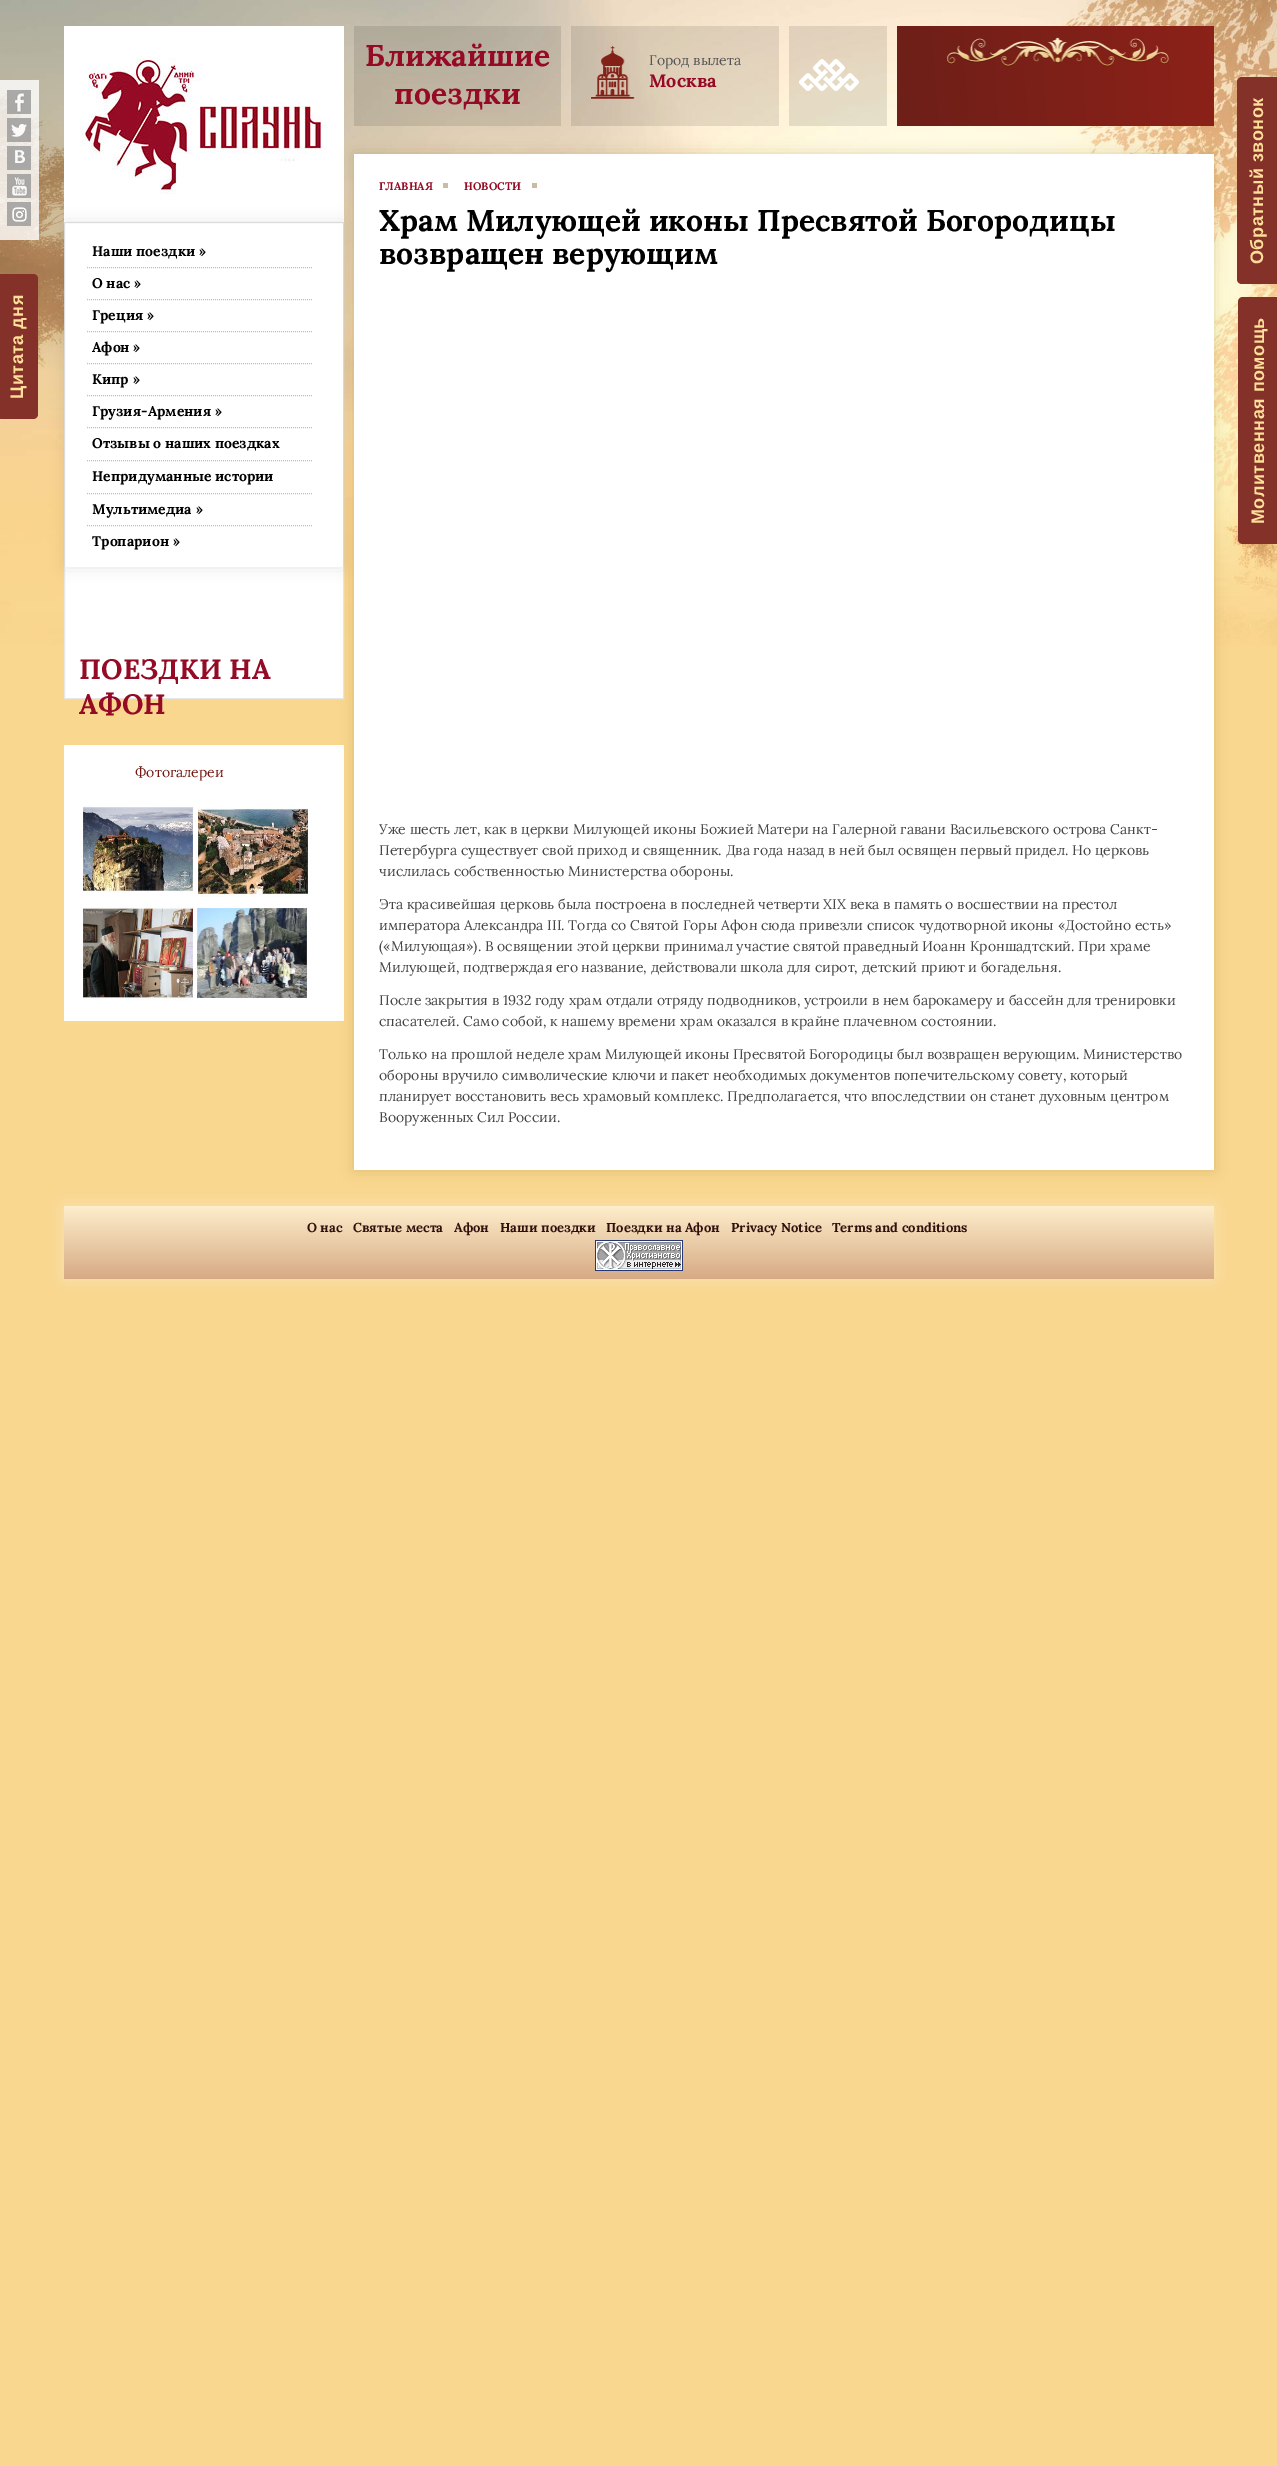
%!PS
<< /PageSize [1277 2466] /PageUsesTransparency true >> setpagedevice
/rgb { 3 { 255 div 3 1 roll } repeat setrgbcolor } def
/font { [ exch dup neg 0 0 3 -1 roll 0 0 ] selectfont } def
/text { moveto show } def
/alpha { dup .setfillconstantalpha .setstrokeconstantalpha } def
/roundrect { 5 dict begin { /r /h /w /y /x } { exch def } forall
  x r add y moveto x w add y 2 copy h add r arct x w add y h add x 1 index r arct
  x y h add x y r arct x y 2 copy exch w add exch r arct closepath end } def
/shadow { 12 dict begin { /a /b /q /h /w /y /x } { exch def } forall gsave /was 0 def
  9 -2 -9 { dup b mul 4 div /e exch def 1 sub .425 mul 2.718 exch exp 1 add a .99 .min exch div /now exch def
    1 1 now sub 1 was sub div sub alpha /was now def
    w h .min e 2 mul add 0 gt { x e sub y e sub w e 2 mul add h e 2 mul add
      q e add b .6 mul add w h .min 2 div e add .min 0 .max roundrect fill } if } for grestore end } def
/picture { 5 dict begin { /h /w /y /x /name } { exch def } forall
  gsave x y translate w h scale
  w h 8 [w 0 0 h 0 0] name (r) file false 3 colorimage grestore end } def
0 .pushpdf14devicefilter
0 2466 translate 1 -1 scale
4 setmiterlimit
249 215 142 rgb
0 0 1277 2466 rectfill
(img_01.rgb) 0 0 1277 646 picture
0.8 alpha
255 255 255 rgb
0 80 39 160 rectfill
1 alpha
(img_02.rgb) 7 90 24 24 picture
(img_03.rgb) 7 118 24 24 picture
(img_04.rgb) 7 146 24 24 picture
(img_05.rgb) 7 174 24 24 picture
(img_06.rgb) 7 202 24 24 picture
(img_07.rgb) 64 26 280 196 picture
64.5 222.5 moveto 279 0 rlineto 0 476 rlineto -279 0 rlineto closepath gsave fill grestore
231 231 231 rgb
stroke
gsave
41 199 moveto 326 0 rlineto 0 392 rlineto -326 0 rlineto closepath 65 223 moveto 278 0 rlineto 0 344 rlineto -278 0 rlineto closepath eoclip newpath
0 0 0 rgb
65 223 278 344 0 7.5 0.1 shadow
grestore
188 188 188 rgb
[1 1] 0 setdash
87 267.5 moveto 226 0 rlineto stroke
87 299.5 moveto 226 0 rlineto stroke
87 331.5 moveto 226 0 rlineto stroke
87 363.5 moveto 226 0 rlineto stroke
87 395.5 moveto 226 0 rlineto stroke
87 427.5 moveto 226 0 rlineto stroke
87 460.5 moveto 226 0 rlineto stroke
87 493.5 moveto 226 0 rlineto stroke
87 525.5 moveto 226 0 rlineto stroke
255 255 255 rgb
64 745 280 276 rectfill
(img_08.rgb) 83 806 110 87 picture
(img_09.rgb) 198 805 110 92 picture
(img_10.rgb) 83 903 110 98 picture
(img_11.rgb) 197 908 110 90 picture
0.1 alpha
0 0 0 rgb
354 26 207 100 rectfill
1 alpha
(img_12.rgb) 571 26 208 100 picture
0.1 alpha
789 26 98 100 rectfill
1 alpha
(img_13.rgb) 799 59 60 32 picture
(img_14.rgb) 897 26 317 100 picture
157 127 49 rgb
354 154 860 1016 0 7.5 0.3 shadow
255 255 255 rgb
354 154 860 1016 rectfill
202 188 164 rgb
443 183 5 5 rectfill
532 183 5 5 rectfill
250 232 199 rgb
64 1206 1150 73 0 10 0.6 shadow
gsave 64 1206 moveto 1150 0 rlineto 0 73 rlineto -1150 0 rlineto closepath clip newpath
<< /ShadingType 2 /ColorSpace /DeviceRGB /Coords [639 1206 639 1279] /Extend [true true] /Function << /FunctionType 2 /Domain [0 1] /C0 [0.996 0.933 0.8] /C1 [0.839 0.667 0.518] /N 1 >> >> shfill grestore
(img_15.rgb) 595 1240 88 31 picture
132 50 41 rgb
1237 279 moveto 0 -197 rlineto 0 -3 2 -5 5 -5 rcurveto 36 0 rlineto 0 207 rlineto -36 0 rlineto -3 0 -5 -2 -5 -5 rcurveto closepath fill
-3 414 moveto 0 -135 rlineto 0 -3 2 -5 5 -5 rcurveto 31 0 rlineto 3 0 5 2 5 5 rcurveto 0 135 rlineto 0 3 -2 5 -5 5 rcurveto -31 0 rlineto -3 0 -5 -2 -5 -5 rcurveto closepath fill
1238 539 moveto 0 -237 rlineto 0 -3 2 -5 5 -5 rcurveto 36 0 rlineto 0 247 rlineto -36 0 rlineto -3 0 -5 -2 -5 -5 rcurveto closepath fill
/Lora-Bold 14 font
0 0 0 rgb
(Наши поездки ») 92 256 text
(О нас ») 92 288 text
(Греция ») 92 320 text
(Афон ») 92 352 text
(Кипр ») 92 384 text
(Грузия-Армения ») 92 416 text
(Отзывы о наших поездках) 92 448 text
(Непридуманные истории) 92 481 text
(Мультимедиа ») 92 514 text
(Тропарион ») 92 546 text
/Lora-Bold 28 font
149 11 37 rgb
(ПОЕЗДКИ НА) 79 679 text
(АФОН) 79 714 text
/Lora-Regular 14 font
115 25 17 rgb
(Фотогалереи) 135 777 text
/Lora-Bold 30 font
149 11 37 rgb
(Ближайшие) 365 66 text
(поездки) 394 104 text
/Lora-Regular 14 font
84 84 84 rgb
(Город вылета) 649 65 text
/Lora-Bold 18 font
149 11 37 rgb
(Москва) 649 87 text
/Lora-Bold 11 font
(ГЛАВНАЯ) 379 190 text
(НОВОСТИ) 464 190 text
/Lora-Bold 30 font
0 0 0 rgb
(Храм Милующей иконы Пресвятой Богородицы) 379 231 text
(возвращен верующим) 379 264 text
/Lora-Regular 14 font
69 69 69 rgb
(Уже шесть лет, как в церкви Милующей иконы Божией Матери на Галерной гавани Васильевского острова Санкт-) 379 834 text
(Петербурга существует свой приход и священник. Два года назад в ней был освящен первый придел. Но церковь) 379 855 text
(числилась собственностью Министерства обороны.) 379 876 text
(Эта красивейшая церковь была построена в последней четверти XIX века в память о восшествии на престол) 379 909 text
(императора Александра III. Тогда со Святой Горы Афон сюда привезли список чудотворной иконы «Достойно есть») 379 930 text
(\(«Милующая»\). В освящении этой церкви принимал участие святой праведный Иоанн Кроншадтский. При храме) 379 951 text
(Милующей, подтверждая его название, действовали школа для сирот, детский приют и богадельня.) 379 972 text
(После закрытия в 1932 году храм отдали отряду подводников, устроили в нем барокамеру и бассейн для тренировки) 379 1005 text
(спасателей. Само собой, к нашему времени храм оказался в крайне плачевном состоянии.) 379 1026 text
(Только на прошлой неделе храм Милующей иконы Пресвятой Богородицы был возвращен верующим. Министерство) 379 1059 text
(обороны вручило символические ключи и пакет необходимых документов попечительскому совету, который) 379 1080 text
(планирует восстановить весь храмовый комплекс. Предполагается, что впоследствии он станет духовным центром) 379 1101 text
(Вооруженных Сил России.) 379 1122 text
/Lora-Bold 13 font
50 15 13 rgb
(О нас) 307 1232 text
(Святые места) 353 1232 text
(Афон) 454 1232 text
(Наши поездки) 500 1232 text
(Поездки на Афон) 606 1232 text
(Privacy Notice) 731 1232 text
(Terms and conditions) 832 1232 text
/LiberationSans-Bold 18 font
255 223 153 rgb
gsave 1263 264 translate -90 rotate 0 0 moveto 0.5 0 (Обратный звонок) ashow grestore
gsave 23 399 translate -90 rotate 0 0 moveto 0.5 0 (Цитата дня) ashow grestore
gsave 1264 524 translate -90 rotate 0 0 moveto 0.5 0 (Молитвенная помощь) ashow grestore
.poppdf14devicefilter showpage
